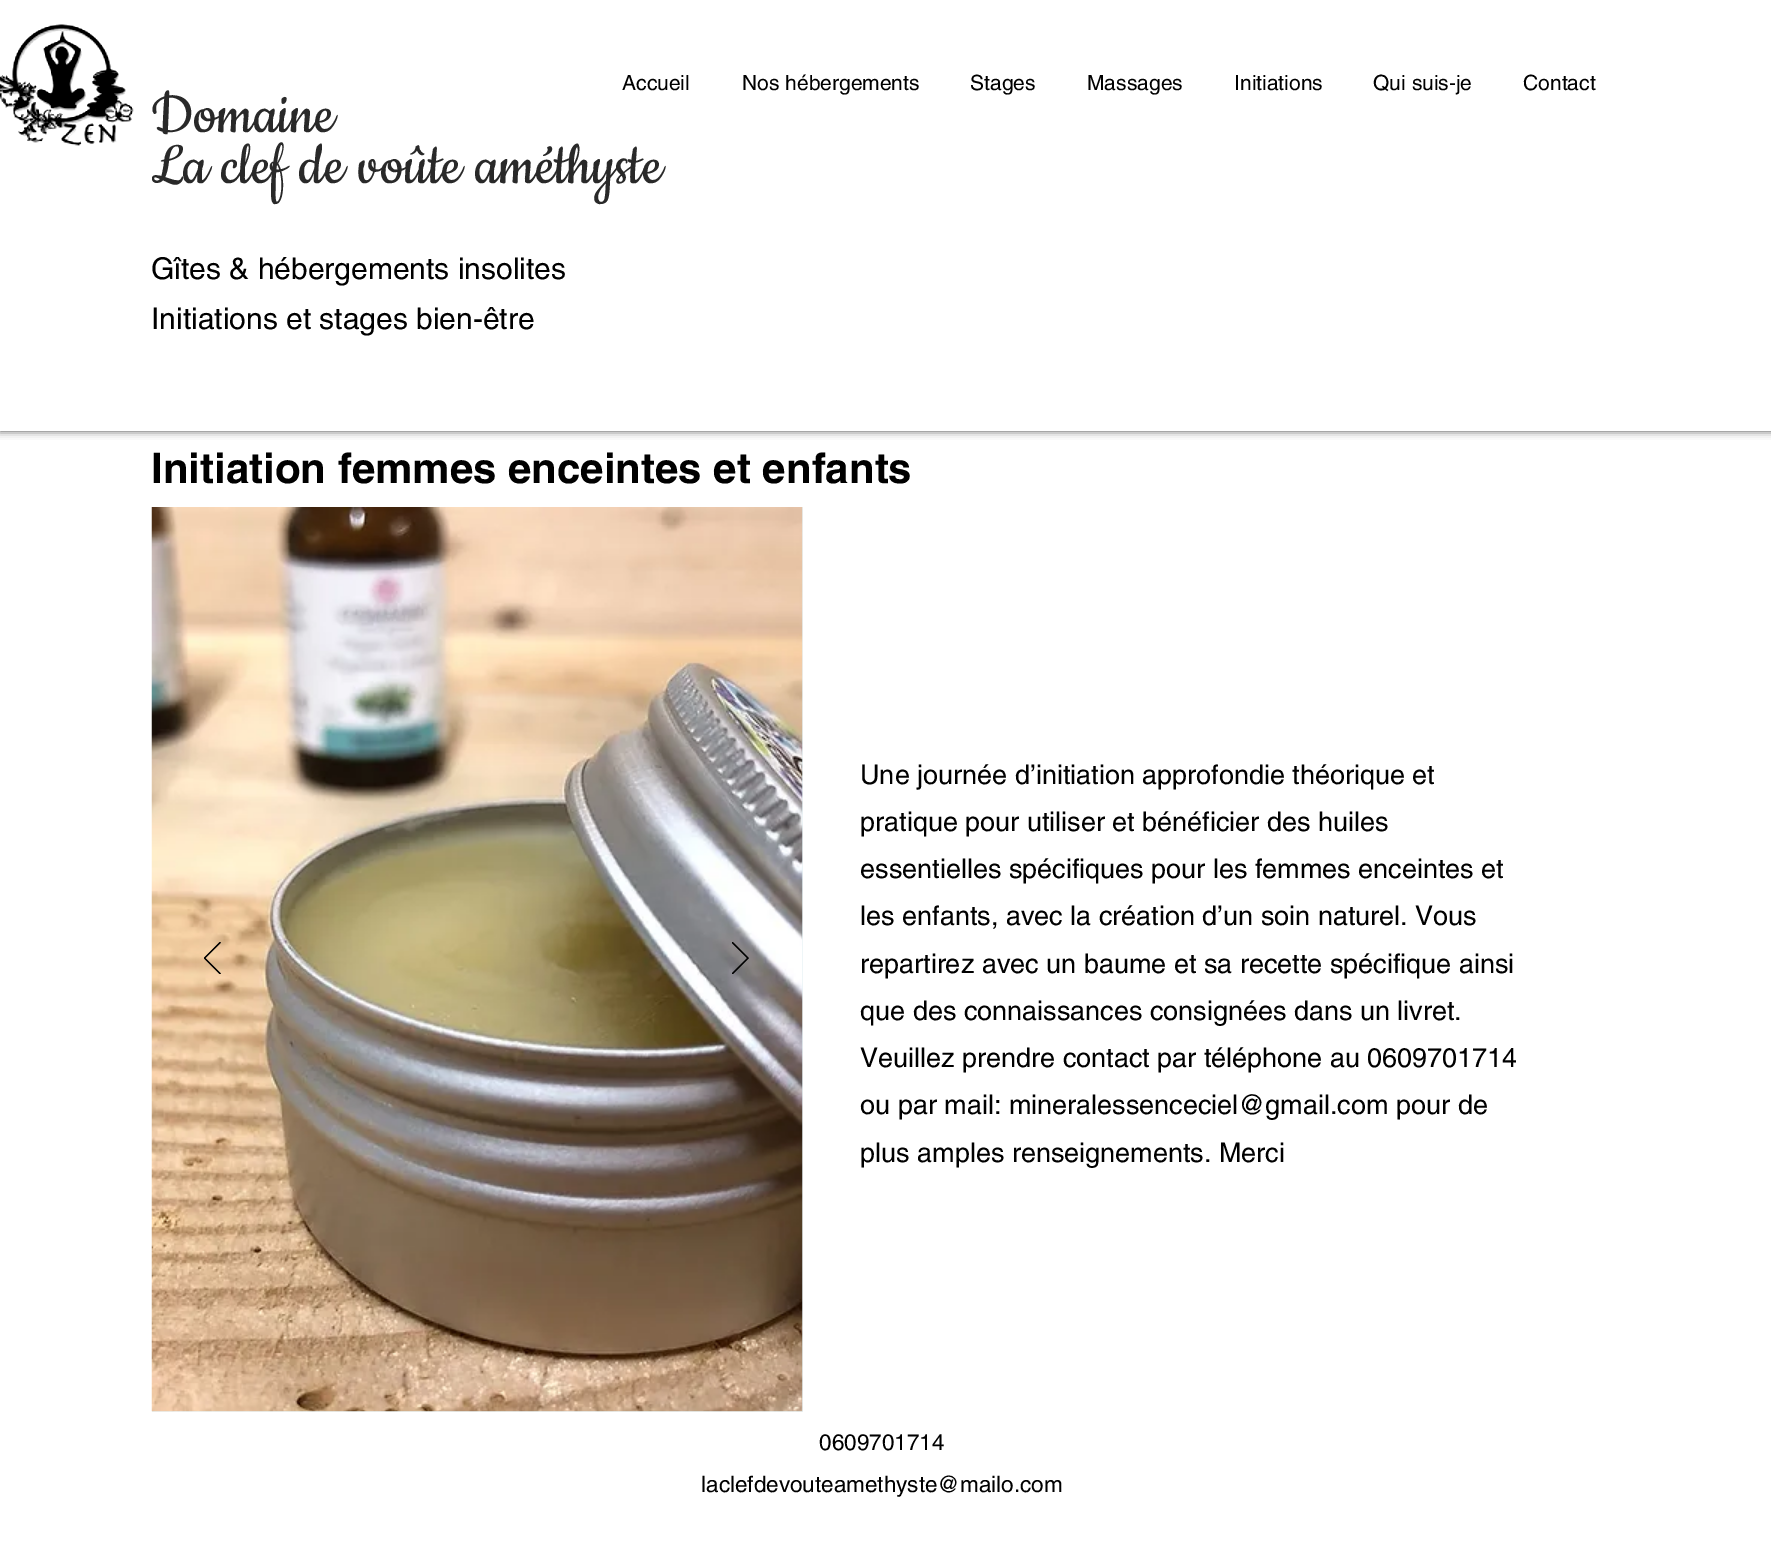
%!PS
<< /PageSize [1771 1549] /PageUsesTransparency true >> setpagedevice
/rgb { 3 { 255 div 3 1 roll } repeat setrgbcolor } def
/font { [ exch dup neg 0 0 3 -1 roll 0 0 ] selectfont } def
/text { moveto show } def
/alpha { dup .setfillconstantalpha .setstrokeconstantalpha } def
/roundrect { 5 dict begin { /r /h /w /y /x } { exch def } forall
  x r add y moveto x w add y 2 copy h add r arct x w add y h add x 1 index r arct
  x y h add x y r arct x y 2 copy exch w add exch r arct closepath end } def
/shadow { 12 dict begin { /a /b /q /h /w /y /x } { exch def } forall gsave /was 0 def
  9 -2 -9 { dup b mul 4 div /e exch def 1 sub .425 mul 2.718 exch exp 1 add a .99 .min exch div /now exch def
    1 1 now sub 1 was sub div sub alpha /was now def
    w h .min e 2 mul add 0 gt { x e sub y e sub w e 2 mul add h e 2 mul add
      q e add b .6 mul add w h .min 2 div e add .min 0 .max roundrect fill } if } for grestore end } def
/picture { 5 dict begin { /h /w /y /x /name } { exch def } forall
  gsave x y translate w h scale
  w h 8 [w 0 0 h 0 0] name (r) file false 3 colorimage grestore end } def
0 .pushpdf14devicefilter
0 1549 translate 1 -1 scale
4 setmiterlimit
255 255 255 rgb
0 0 1771 1549 rectfill
0 0 0 rgb
0 0 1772 431 0 4 0.7 shadow
255 255 255 rgb
0 0 1771 431 rectfill
(img_01.rgb) 0 24 134 122 picture
233 243 246 rgb
152 507 651 905 rectfill
(img_02.rgb) 151 507 652 905 picture
(img_03.rgb) 204 942 17 32 picture
(img_04.rgb) 732 942 17 32 picture
0.13 alpha
255 255 255 rgb
173 1411 629 1 rectfill
/helvetica-Regular 21 font
1 alpha
0 0 0 rgb
(Accueil) 622 90 text
(Nos hébergements) 742 90 text
(Stages) 970 90 text
(Massages) 1087 90 text
(Initiations) 1234 90 text
(Qui suis-je) 1373 90 text
(Contact) 1523 90 text
/Cookie-Regular 66 font
41 41 41 rgb
(Domaine) 151 132 text
(La clef de voûte améthyste) 151 183 text
/helvetica-Regular 30 font
0 0 0 rgb
(Gîtes & hébergements insolites) 151 279 text
(Initiations et stages bien-être) 151 329 text
/helvetica-Bold 42 font
(Initiation femmes enceintes et enfants) 151 483 text
/helvetica-Regular 27 font
(Une journée d’initiation approfondie théorique et) 860 784 text
(pratique pour utiliser et bénéficier des huiles) 860 831 text
(essentielles spécifiques pour les femmes enceintes et) 860 878 text
(les enfants, avec la création d’un soin naturel. Vous) 860 925 text
(repartirez avec un baume et sa recette spécifique ainsi) 860 973 text
(que des connaissances consignées dans un livret.) 860 1020 text
(Veuillez prendre contact par téléphone au 0609701714) 860 1067 text
(ou par mail: mineralessenceciel@gmail.com pour de) 860 1114 text
(plus amples renseignements. Merci) 860 1162 text
/helvetica-Regular 22.5 font
(0609701714) 819 1450 text
(laclefdevouteamethyste@mailo.com) 701 1492 text
.poppdf14devicefilter showpage
